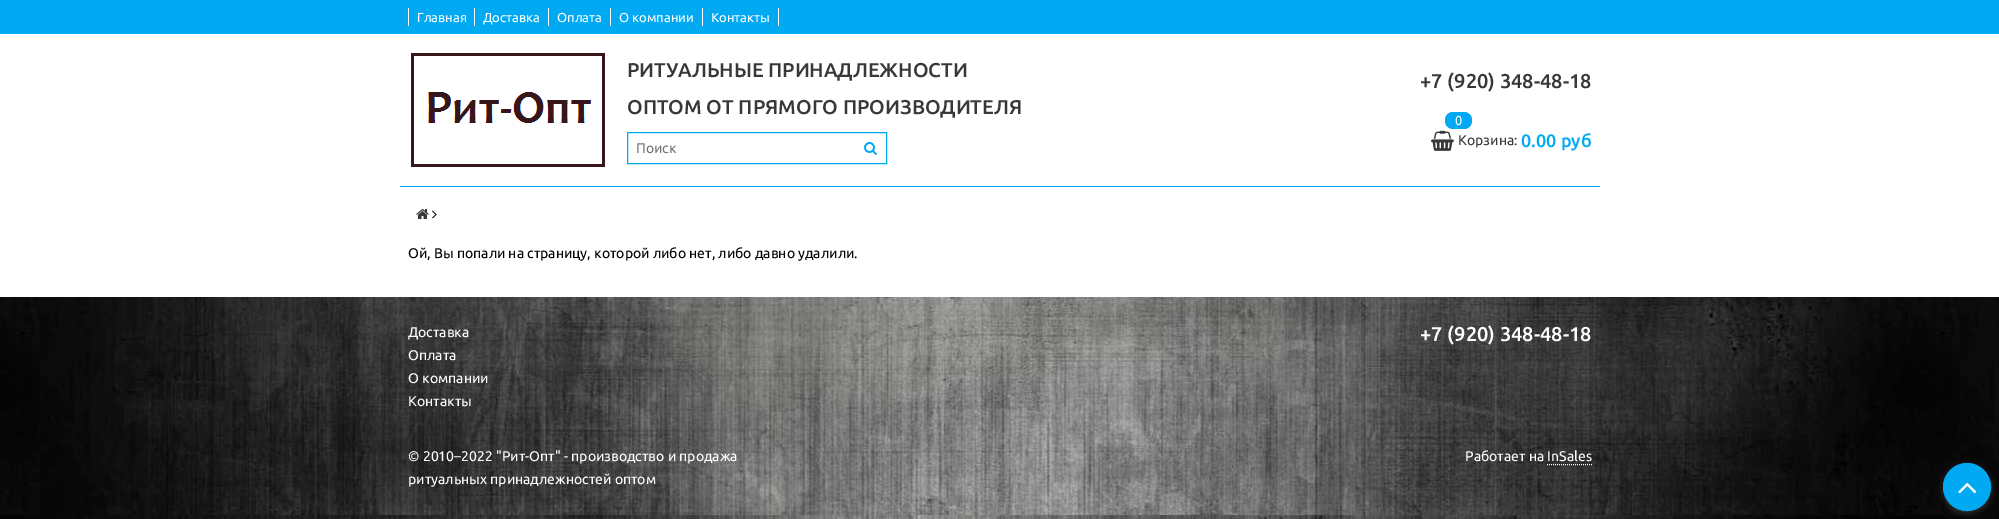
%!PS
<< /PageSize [1999 519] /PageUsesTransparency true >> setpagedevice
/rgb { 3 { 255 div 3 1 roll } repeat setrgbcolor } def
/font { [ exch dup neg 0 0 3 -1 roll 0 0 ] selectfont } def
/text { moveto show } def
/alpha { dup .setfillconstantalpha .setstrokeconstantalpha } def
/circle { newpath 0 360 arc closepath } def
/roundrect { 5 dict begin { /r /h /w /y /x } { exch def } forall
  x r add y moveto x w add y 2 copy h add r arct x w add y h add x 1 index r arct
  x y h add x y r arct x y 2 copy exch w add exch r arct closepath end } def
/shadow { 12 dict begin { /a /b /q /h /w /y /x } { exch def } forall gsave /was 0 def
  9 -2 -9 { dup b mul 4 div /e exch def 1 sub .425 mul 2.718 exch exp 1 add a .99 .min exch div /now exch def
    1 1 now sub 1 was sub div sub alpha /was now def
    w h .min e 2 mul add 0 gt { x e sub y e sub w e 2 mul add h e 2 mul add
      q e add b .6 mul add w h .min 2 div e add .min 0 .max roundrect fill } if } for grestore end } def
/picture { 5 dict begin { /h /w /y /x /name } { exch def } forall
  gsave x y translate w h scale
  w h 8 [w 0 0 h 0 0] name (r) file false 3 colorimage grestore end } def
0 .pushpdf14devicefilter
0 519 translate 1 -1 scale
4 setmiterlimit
255 255 255 rgb
0 0 1999 519 rectfill
(img_01.rgb) 0 515 1999 4 picture
0 169 242 rgb
0 0 1999 34 rectfill
255 255 255 rgb
408 8 1 18 rectfill
474 8 1 18 rectfill
548 8 1 18 rectfill
610 8 1 18 rectfill
778 8 1 18 rectfill
702 8 1 18 rectfill
(img_02.rgb) 411 53 194 114 picture
0 169 242 rgb
627.5 132.5 259 31 rectstroke
(img_03.rgb) 864 142 13 13 picture
1445 112 27 17 8 roundrect fill
(img_04.rgb) 1431 130 23 21 picture
400 186 1200 1 rectfill
(img_05.rgb) 416 209 13 10 picture
(img_06.rgb) 432 210 5 9 picture
(img_07.rgb) 0 297 1999 218 picture
255 255 255 rgb
[1 1] 0 setdash
1547 464.5 moveto 45 0 rlineto stroke
51 51 51 rgb
1943 465 48 48 24 3 1 shadow
0 169 242 rgb
1967 487 23.5 circle gsave fill grestore
[] 0 setdash
stroke
(img_08.rgb) 1958 482 19 12 picture
/Ubuntu-Regular 13 font
255 255 255 rgb
(Главная) 417 22 text
(Доставка) 483 22 text
(Оплата) 557 22 text
(О компании) 619 22 text
(Контакты) 711 22 text
/Ubuntu-Medium 20 font
56 56 56 rgb
(РИТУАЛЬНЫЕ ПРИНАДЛЕЖНОСТИ) 627 77 text
(ОПТОМ ОТ ПРЯМОГО ПРОИЗВОДИТЕЛЯ) 627 114 text
/Ubuntu-Regular 14 font
117 117 117 rgb
(Поиск) 636 153 text
/Ubuntu-Medium 20 font
56 56 56 rgb
(+7 \(920\) 348-48-18) 1420 88 text
/Ubuntu-Regular 13 font
255 255 255 rgb
(0) 1455 125 text
/Ubuntu-Regular 14 font
56 56 56 rgb
(Корзина:) 1458 145 text
/Ubuntu-Medium 18 font
0 169 242 rgb
(0.00 руб) 1521 147 text
/Ubuntu-Regular 14 font
0 0 0 rgb
(Ой, Вы попали на страницу, которой либо нет, либо давно удалили.) 408 258 text
255 255 255 rgb
(Доставка) 408 337 text
(Оплата) 408 360 text
(О компании) 408 383 text
(Контакты) 408 406 text
/Ubuntu-Medium 20 font
(+7 \(920\) 348-48-18) 1420 341 text
/Ubuntu-Regular 14 font
(© 2010–2022 "Рит-Опт" - производство и продажа) 408 461 text
(ритуальных принадлежностей оптом) 408 484 text
(Работает на InSales) 1465 461 text
.poppdf14devicefilter showpage
